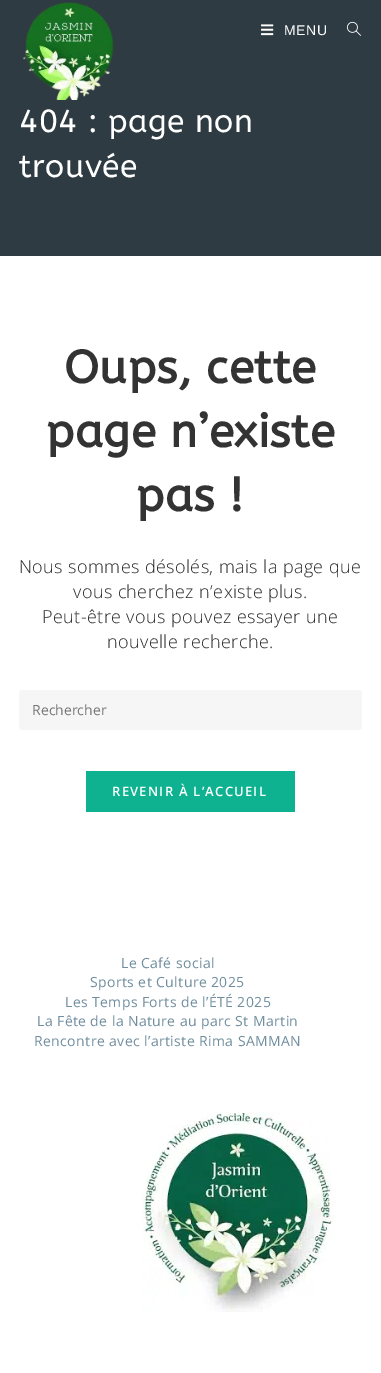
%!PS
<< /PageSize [381 1373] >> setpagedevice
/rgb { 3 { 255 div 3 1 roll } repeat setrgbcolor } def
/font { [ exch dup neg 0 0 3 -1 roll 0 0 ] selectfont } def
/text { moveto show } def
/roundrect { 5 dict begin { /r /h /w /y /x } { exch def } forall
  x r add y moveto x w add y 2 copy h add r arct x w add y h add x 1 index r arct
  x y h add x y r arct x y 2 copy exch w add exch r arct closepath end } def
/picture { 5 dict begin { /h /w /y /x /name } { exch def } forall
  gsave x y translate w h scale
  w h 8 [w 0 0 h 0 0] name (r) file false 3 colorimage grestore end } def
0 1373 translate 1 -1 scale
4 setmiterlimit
255 255 255 rgb
0 0 381 1373 rectfill
46 59 66 rgb
0 0 381 256 rectfill
(img_01.rgb) 23 2 91 98 picture
(img_02.rgb) 261 24 13 12 picture
(img_03.rgb) 347 21 14 15 picture
246 246 246 rgb
19 690 343 40 3 roundrect fill
14 178 144 rgb
86 771 209 41 rectfill
(img_04.rgb) 142 1112 192 200 picture
/LiberationSans-Regular 14 font
255 255 255 rgb
284 35 moveto 0.5 0 (MENU) ashow
/ABeeZee-Regular 32 font
19 132 moveto 0.4 0 (404 : page non) ashow
19 177 moveto 0.4 0 (trouvée) ashow
/ABeeZee-Bold 46 font
51 51 51 rgb
64 383 moveto 0.4 0 (Oups, cette) ashow
46 447 moveto 0.4 0 (page n’existe) ashow
136 511 moveto 0.4 0 (pas !) ashow
/OpenSans-Light 18 font
43 43 43 rgb
19 573 moveto 0.4 0 (Nous sommes désolés, mais la page que) ashow
73 598 moveto 0.4 0 (vous cherchez n’existe plus.) ashow
42 623 moveto 0.4 0 (Peut-être vous pouvez essayer une) ashow
107 648 moveto 0.4 0 (nouvelle recherche.) ashow
/OpenSans-Regular 14 font
117 117 117 rgb
(Rechercher) 32 715 text
/OpenSans-SemiBold 13 font
255 255 255 rgb
112 796 moveto 1.25 0 (REVENIR À L’ACCUEIL) ashow
/OpenSans-Regular 14 font
112 142 159 rgb
121 968 moveto 0.4 0 (Le Café social) ashow
90 987 moveto 0.4 0 (Sports et Culture 2025) ashow
65 1007 moveto 0.4 0 (Les Temps Forts de l’ÉTÉ 2025) ashow
37 1026 moveto 0.4 0 (La Fête de la Nature au parc St Martin) ashow
34 1046 moveto 0.4 0 (Rencontre avec l’artiste Rima SAMMAN) ashow
showpage
